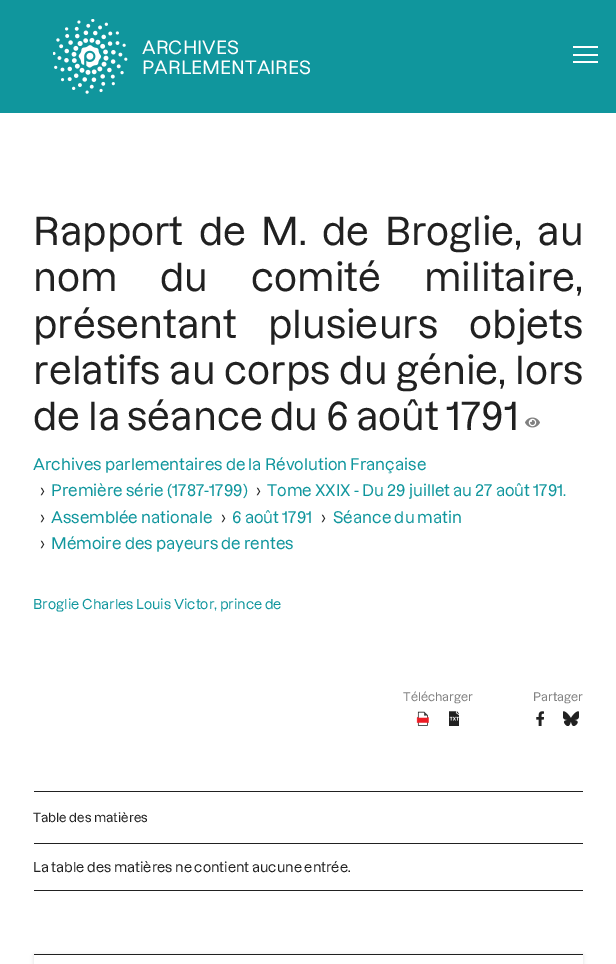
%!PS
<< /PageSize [616 964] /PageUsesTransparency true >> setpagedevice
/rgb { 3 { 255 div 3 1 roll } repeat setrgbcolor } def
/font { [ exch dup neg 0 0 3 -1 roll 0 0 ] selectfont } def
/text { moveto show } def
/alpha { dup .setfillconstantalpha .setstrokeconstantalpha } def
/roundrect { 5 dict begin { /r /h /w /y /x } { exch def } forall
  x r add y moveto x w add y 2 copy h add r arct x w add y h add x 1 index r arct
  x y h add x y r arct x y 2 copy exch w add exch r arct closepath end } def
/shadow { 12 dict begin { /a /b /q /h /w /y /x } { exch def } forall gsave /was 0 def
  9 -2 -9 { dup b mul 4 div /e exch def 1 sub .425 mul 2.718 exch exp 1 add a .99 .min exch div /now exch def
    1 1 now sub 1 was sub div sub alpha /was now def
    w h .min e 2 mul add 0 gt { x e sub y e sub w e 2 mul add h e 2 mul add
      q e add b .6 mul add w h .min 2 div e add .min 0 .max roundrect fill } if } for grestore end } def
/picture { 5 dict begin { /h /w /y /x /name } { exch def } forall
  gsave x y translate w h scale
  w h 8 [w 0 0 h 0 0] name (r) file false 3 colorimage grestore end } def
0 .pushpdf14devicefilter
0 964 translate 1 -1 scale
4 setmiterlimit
255 255 255 rgb
0 0 616 964 rectfill
16 150 157 rgb
0 0 616 113 rectfill
(img_01.rgb) 53 19 75 75 picture
255 255 255 rgb
573 46 25 2 rectfill
573 54 25 2 rectfill
573 61 25 2 rectfill
(img_02.rgb) 525 417 15 11 picture
(img_03.rgb) 416 711 13 15 picture
(img_04.rgb) 449 711 10 15 picture
(img_05.rgb) 536 711 8 15 picture
(img_06.rgb) 563 711 16 15 picture
33 33 33 rgb
34 890 549 1 rectfill
34 791 549 1 rectfill
34 843 549 1 rectfill
0 0 0 rgb
34 955 549 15 0 2 0.12 shadow
255 255 255 rgb
34 955 549 9 rectfill
33 33 33 rgb
34 954 549 1 rectfill
/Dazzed-Medium 18 font
255 255 255 rgb
(ARCHIVES) 142 54 text
(PARLEMENTAIRES) 142 74 text
/Dazzed-Medium 37.9 font
33 33 33 rgb
33 245 moveto 8 0 32 (Rapport de M. de Broglie, au) widthshow
33 291 moveto 35.5 0 32 (nom du comité militaire,) widthshow
33 338 moveto 24 0 32 (présentant plusieurs objets) widthshow
33 384 moveto 1.5 0 32 (relatifs au corps du génie, lors) widthshow
(de la séance du 6 août 1791) 33 430 text
/Dazzed-Medium 15.75 font
16 150 157 rgb
(Archives parlementaires de la Révolution Française) 33 470 text
33 33 33 rgb
(›) 40 496 text
16 150 157 rgb
(Première série \(1787-1799\)) 51 496 text
33 33 33 rgb
(›) 256 496 text
16 150 157 rgb
(Tome XXIX - Du 29 juillet au 27 août 1791.) 267 496 text
33 33 33 rgb
(›) 40 523 text
16 150 157 rgb
(Assemblée nationale) 51 523 text
33 33 33 rgb
(›) 221 523 text
16 150 157 rgb
(6 août 1791) 232 523 text
33 33 33 rgb
(›) 321 523 text
16 150 157 rgb
(Séance du matin) 333 523 text
33 33 33 rgb
(›) 40 549 text
16 150 157 rgb
(Mémoire des payeurs de rentes) 51 549 text
/Dazzed-Medium 13.5 font
(Broglie Charles Louis Victor, prince de) 33 609 text
/Dazzed-Medium 11.75 font
128 128 128 rgb
(Télécharger) 403 701 text
(Partager) 533 701 text
/Dazzed-Medium 12.4 font
33 33 33 rgb
(Table des matières) 33 822 text
/Dazzed-Medium 13.5 font
(La table des matières ne contient aucune entrée.) 33 872 text
.poppdf14devicefilter showpage
